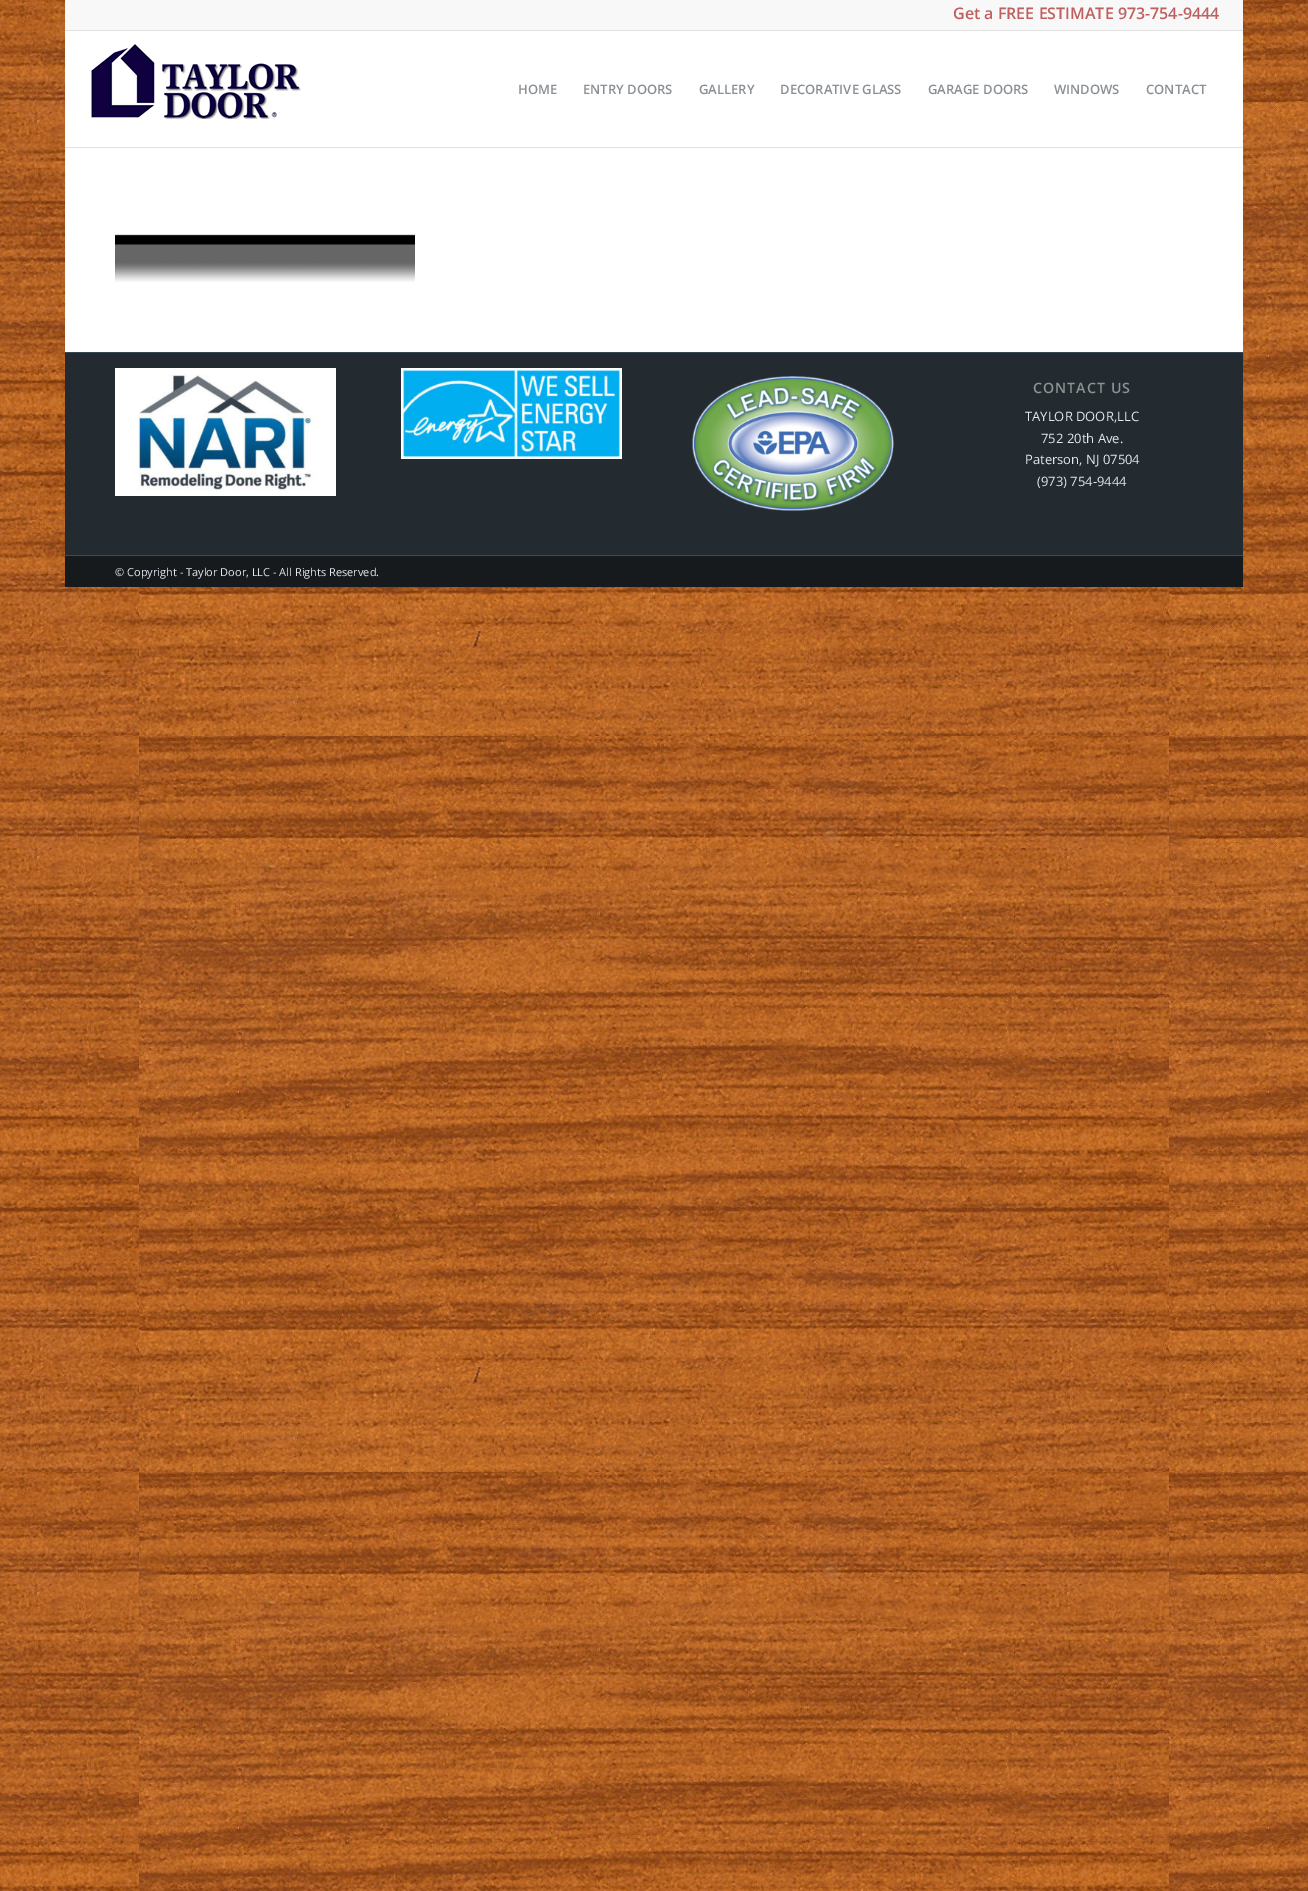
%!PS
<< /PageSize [1308 1891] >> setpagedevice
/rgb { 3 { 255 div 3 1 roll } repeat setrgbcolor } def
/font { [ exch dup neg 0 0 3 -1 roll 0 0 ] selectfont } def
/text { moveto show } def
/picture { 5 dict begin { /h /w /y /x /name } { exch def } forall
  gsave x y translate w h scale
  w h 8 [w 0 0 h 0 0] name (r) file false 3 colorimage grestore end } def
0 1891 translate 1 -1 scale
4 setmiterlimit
255 255 255 rgb
0 0 1308 1891 rectfill
(img_01.rgb) 0 0 1308 1891 picture
248 248 248 rgb
65 0 1178 30 rectfill
225 225 225 rgb
65 30 1178 1 rectfill
255 255 255 rgb
65 31 1178 321 rectfill
225 225 225 rgb
65 147 1178 1 rectfill
(img_02.rgb) 91 44 210 75 picture
(img_03.rgb) 115 234 300 48 picture
35 43 48 rgb
65 353 1178 202 rectfill
56 72 82 rgb
65 352 1178 1 rectfill
(img_04.rgb) 115 368 221 128 picture
(img_05.rgb) 401 368 221 91 picture
(img_06.rgb) 692 376 202 135 picture
22 26 28 rgb
65 556 1178 31 rectfill
62 74 82 rgb
65 555 1178 1 rectfill
/OpenSans-SemiBold 16 font
192 95 95 rgb
(Get a FREE ESTIMATE 973-754-9444) 953 19 text
/OpenSans-SemiBold 13 font
136 144 149 rgb
(HOME) 518 94 text
(ENTRY DOORS) 583 94 text
(GALLERY) 699 94 text
(DECORATIVE GLASS) 780 94 text
(GARAGE DOORS) 928 94 text
(WINDOWS) 1054 94 text
(CONTACT) 1146 94 text
/OpenSans-SemiBold 14.25 font
142 147 146 rgb
1033 393 moveto 1 0 (CONTACT US) ashow
/OpenSans-Regular 13 font
228 230 240 rgb
(TAYLOR DOOR,LLC) 1025 421 text
(752 20th Ave.) 1041 443 text
(Paterson, NJ 07504) 1025 464 text
(\(973\) 754-9444) 1037 486 text
/OpenSans-Regular 11 font
(© Copyright - Taylor Door, LLC - All Rights Reserved.) 115 576 text
showpage
